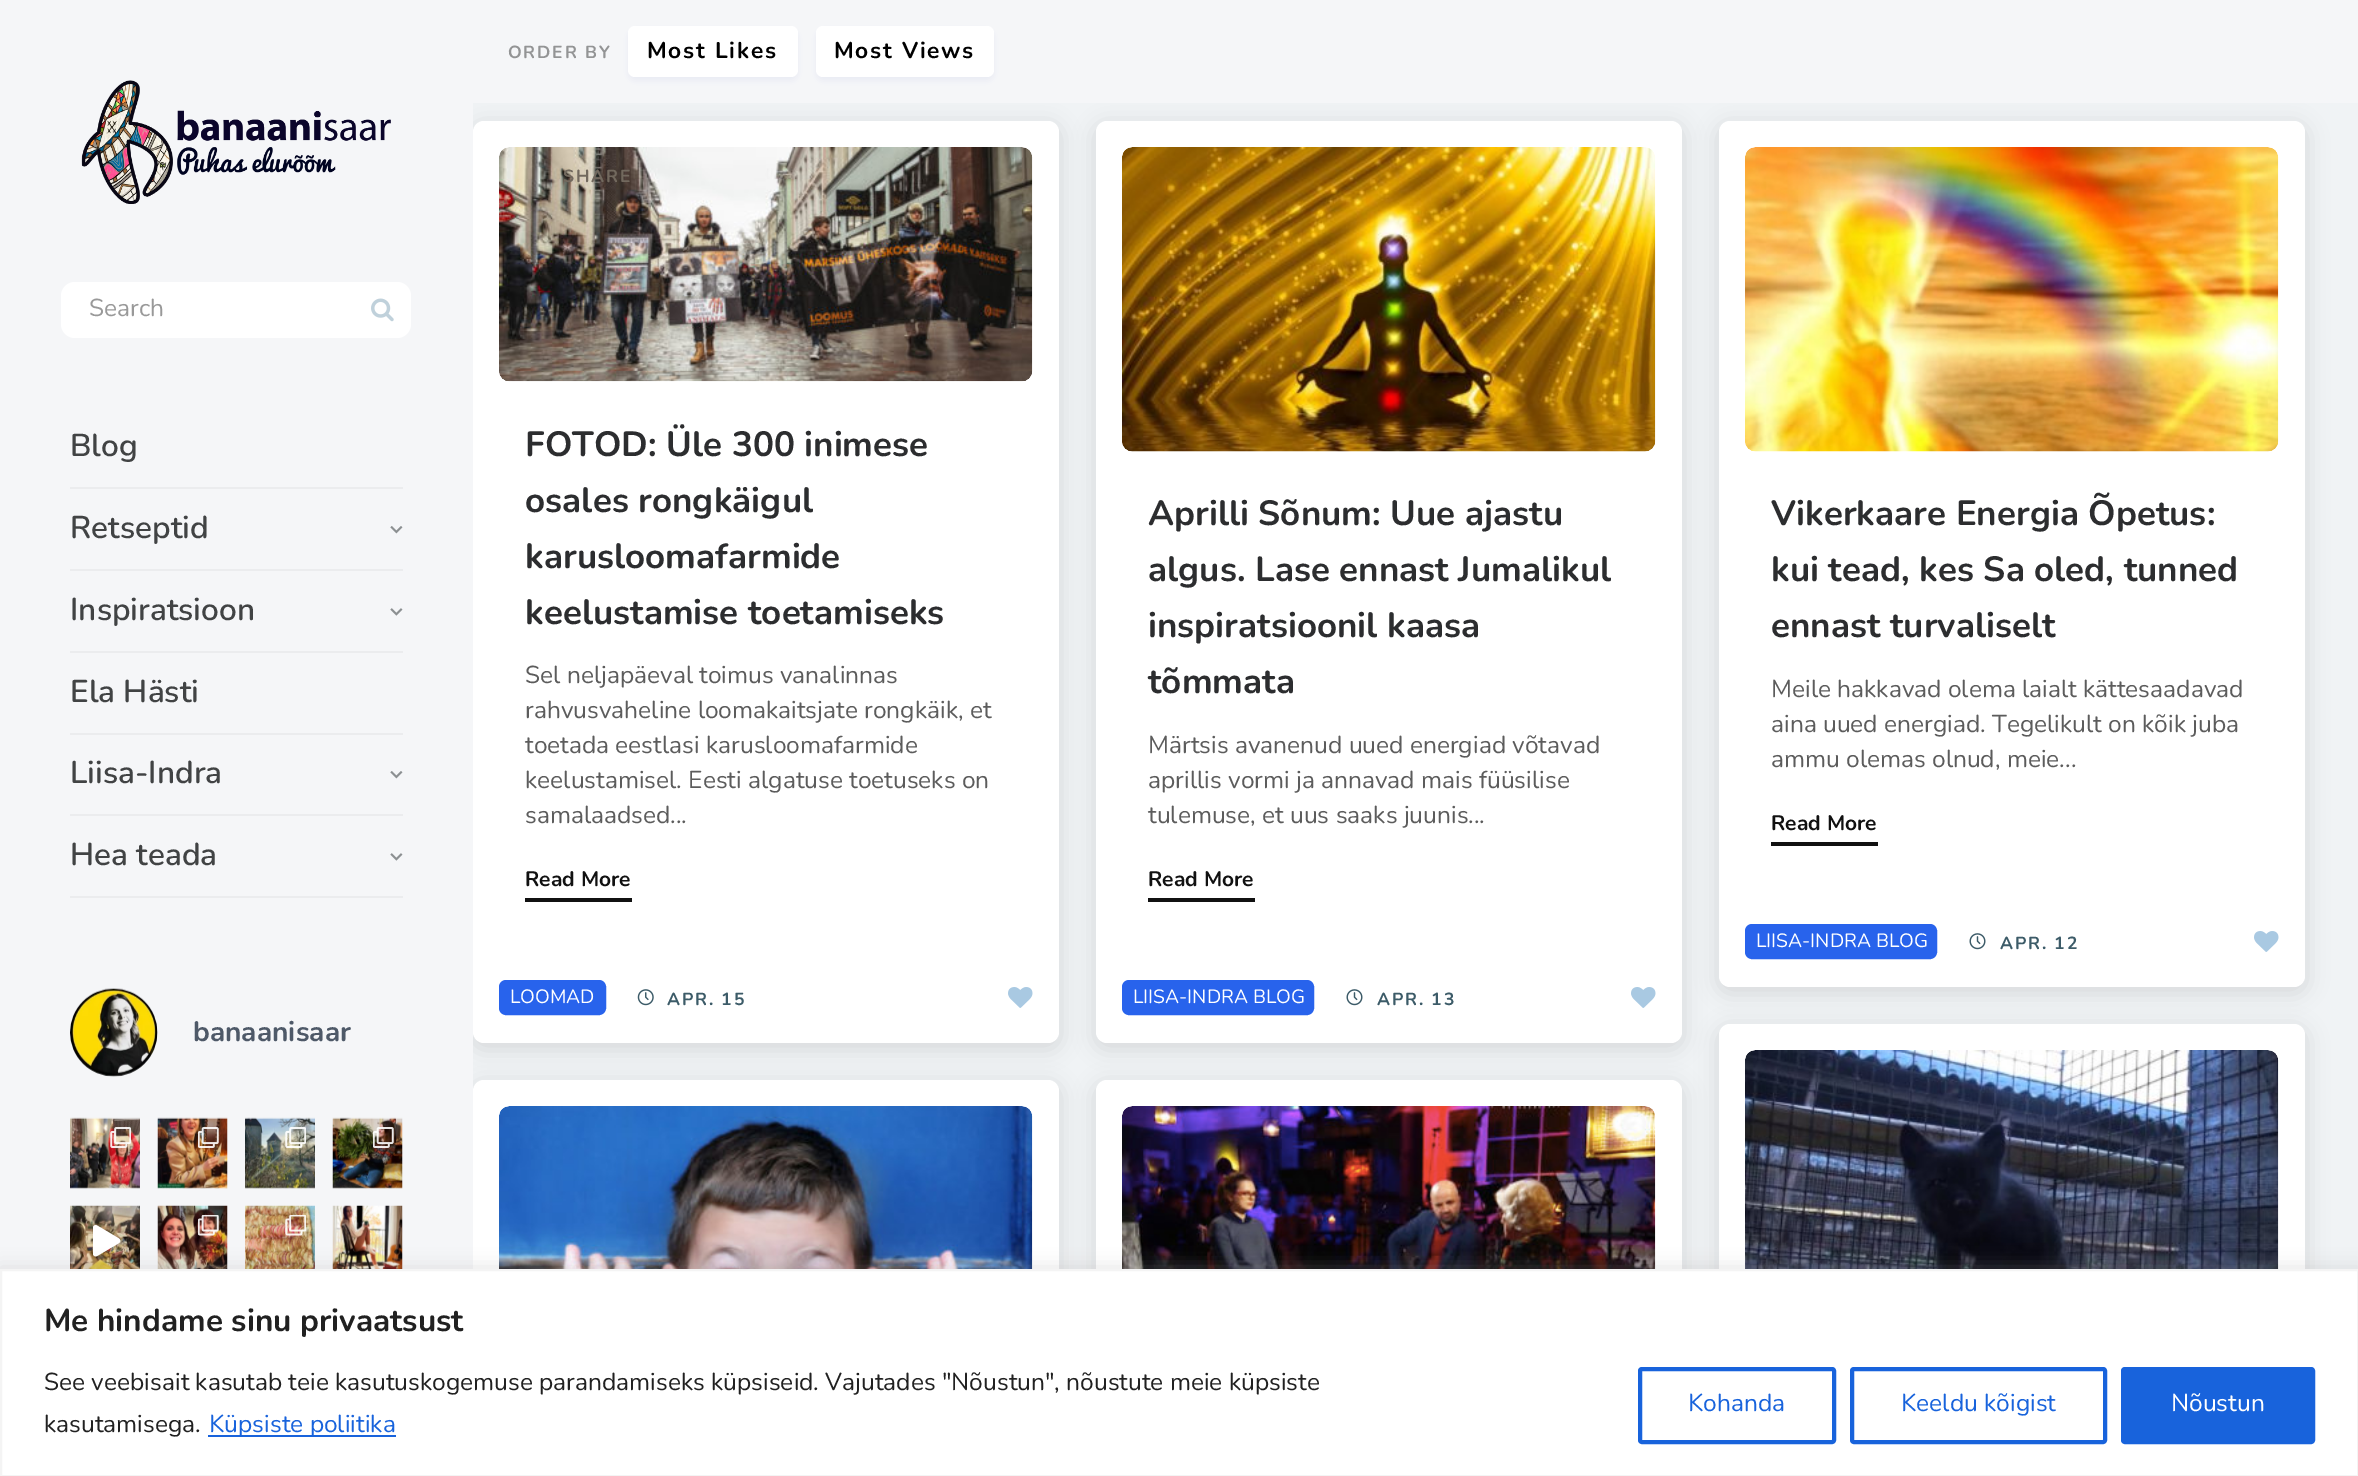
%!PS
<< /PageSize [2358 1476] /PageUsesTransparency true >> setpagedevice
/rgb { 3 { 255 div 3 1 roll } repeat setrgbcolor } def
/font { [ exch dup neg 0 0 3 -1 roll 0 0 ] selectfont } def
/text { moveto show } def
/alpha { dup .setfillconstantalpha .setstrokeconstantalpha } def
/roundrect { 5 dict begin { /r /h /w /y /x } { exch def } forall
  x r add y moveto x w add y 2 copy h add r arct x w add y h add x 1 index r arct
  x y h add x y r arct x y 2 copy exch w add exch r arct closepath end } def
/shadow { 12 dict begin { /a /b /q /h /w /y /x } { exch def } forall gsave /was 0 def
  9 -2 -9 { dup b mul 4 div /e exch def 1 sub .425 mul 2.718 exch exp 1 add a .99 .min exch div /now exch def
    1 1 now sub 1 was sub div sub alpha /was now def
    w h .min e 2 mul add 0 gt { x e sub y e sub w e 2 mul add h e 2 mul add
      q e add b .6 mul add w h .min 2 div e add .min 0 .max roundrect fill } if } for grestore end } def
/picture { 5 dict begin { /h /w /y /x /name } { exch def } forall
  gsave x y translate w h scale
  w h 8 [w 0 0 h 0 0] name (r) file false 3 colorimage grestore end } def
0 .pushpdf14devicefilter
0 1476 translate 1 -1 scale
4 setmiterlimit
240 243 245 rgb
0 0 2358 1476 rectfill
0 0 0 rgb
471 124 590 926 12 10.5 0.1 shadow
471 1083 590 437 12 10.5 0.1 shadow
245 246 248 rgb
0 0 473 1269 rectfill
(img_01.rgb) 81 80 310 124 picture
255 255 255 rgb
61 282 350 56 14 roundrect fill
(img_02.rgb) 371 298 23 24 picture
235 236 238 rgb
70 487 333 2 rectfill
70 569 333 2 rectfill
(img_03.rgb) 390 526 13 8 picture
70 651 333 2 rectfill
(img_04.rgb) 390 608 13 8 picture
70 733 333 2 rectfill
70 814 333 2 rectfill
(img_03.rgb) 390 771 13 8 picture
70 896 333 2 rectfill
(img_04.rgb) 390 853 13 8 picture
(img_05.rgb) 70 988 88 89 picture
(img_06.rgb) 70 1117 70 72 picture
(img_07.rgb) 110 1127 21 21 picture
(img_08.rgb) 157 1117 71 72 picture
(img_09.rgb) 198 1127 21 21 picture
(img_10.rgb) 245 1117 70 72 picture
(img_11.rgb) 285 1127 21 21 picture
(img_12.rgb) 332 1117 71 72 picture
(img_13.rgb) 373 1127 21 21 picture
(img_14.rgb) 70 1205 70 64 picture
(img_15.rgb) 93 1225 28 32 picture
(img_16.rgb) 157 1205 71 64 picture
(img_17.rgb) 198 1215 21 21 picture
(img_18.rgb) 245 1205 70 64 picture
(img_19.rgb) 285 1215 21 21 picture
(img_20.rgb) 332 1205 71 64 picture
0 0 0 rgb
1094 124 590 926 12 10.5 0.1 shadow
1717 124 590 870 12 10.5 0.1 shadow
245 246 248 rgb
473 0 1885 103 rectfill
146 158 218 rgb
628 30 170 51 7 3.5 0.12 shadow
255 255 255 rgb
628 26 170 51 7 roundrect fill
146 158 218 rgb
816 30 178 51 7 3.5 0.12 shadow
255 255 255 rgb
816 26 178 51 7 roundrect fill
473 121 586 922 11 roundrect fill
(img_21.rgb) 499 147 534 235 picture
17 17 17 rgb
525 898 107 4 rectfill
40 99 236 rgb
500 981 105 33 6 roundrect gsave fill grestore
2 setlinewidth
stroke
(img_22.rgb) 637 989 17 17 picture
(img_23.rgb) 1008 987 25 21 picture
255 255 255 rgb
1096 121 586 922 11 roundrect fill
(img_24.rgb) 1122 147 534 305 picture
17 17 17 rgb
1148 898 107 4 rectfill
40 99 236 rgb
1123 981 190 33 6 roundrect gsave fill grestore
stroke
(img_25.rgb) 1346 989 17 17 picture
(img_23.rgb) 1631 987 25 21 picture
255 255 255 rgb
1719 121 586 866 11 roundrect fill
(img_26.rgb) 1745 147 534 305 picture
17 17 17 rgb
1771 842 107 4 rectfill
40 99 236 rgb
1746 925 190 33 6 roundrect gsave fill grestore
stroke
(img_25.rgb) 1969 933 17 17 picture
(img_23.rgb) 2254 931 25 21 picture
255 255 255 rgb
473 1080 586 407 11 roundrect fill
(img_27.rgb) 499 1106 534 163 picture
0 0 0 rgb
1094 1083 590 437 12 10.5 0.1 shadow
255 255 255 rgb
1096 1080 586 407 11 roundrect fill
(img_28.rgb) 1122 1106 534 163 picture
0 0 0 rgb
1717 1027 590 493 12 10.5 0.1 shadow
255 255 255 rgb
1719 1024 586 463 11 roundrect fill
(img_29.rgb) 1745 1050 534 219 picture
172 171 171 rgb
0 1267 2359 208 0 9 0.3 shadow
255 255 255 rgb
1 1270 moveto 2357 0 rlineto 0 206 rlineto -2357 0 rlineto closepath gsave fill grestore
244 244 244 rgb
stroke
24 99 220 rgb
208 1435 188 2 rectfill
4 setlinewidth
1640 1369 194 73 2 roundrect stroke
1852 1369 253 73 2 roundrect stroke
2123 1369 190 73 2 roundrect gsave fill grestore
stroke
/Nunito-Regular 24.5 font
153 153 153 rgb
(Search) 89 316 text
/Nunito-SemiBold 31.5 font
65 67 68 rgb
(Blog) 70 456 text
(Retseptid) 70 538 text
(Inspiratsioon) 70 620 text
(Ela Hästi) 70 702 text
(Liisa-Indra) 70 783 text
(Hea teada) 70 865 text
/Nunito-Bold 28 font
78 89 104 rgb
(banaanisaar) 193 1041 text
/Nunito-Bold 17.5 font
147 148 149 rgb
508 58 moveto 1.75 0 (ORDER BY) ashow
/Nunito-Bold 22.75 font
0 0 0 rgb
647 58 moveto 1.75 0 (Most Likes) ashow
834 58 moveto 1.75 0 (Most Views) ashow
/Nunito-Bold 17.5 font
114 105 94 rgb
563 182 moveto 1.75 0 (SHARE) ashow
/Nunito-Bold 35 font
44 45 47 rgb
(FOTOD: Üle 300 inimese) 525 456 text
(osales rongkäigul) 525 512 text
(karusloomafarmide) 525 568 text
(keelustamise toetamiseks) 525 624 text
/Nunito-Regular 24.5 font
92 92 92 rgb
(Sel neljapäeval toimus vanalinnas) 525 683 text
(rahvusvaheline loomakaitsjate rongkäik, et) 525 718 text
(toetada eestlasi karusloomafarmide) 525 753 text
(keelustamisel. Eesti algatuse toetuseks on) 525 788 text
(samalaadsed...) 525 823 text
/Nunito-Bold 21 font
17 17 17 rgb
(Read More) 525 886 text
/Nunito-Regular 19.25 font
255 255 255 rgb
(LOOMAD) 510 1003 text
/Nunito-Bold 17.5 font
60 91 104 rgb
667 1005 moveto 1.75 0 (APR. 15) ashow
/Nunito-Bold 35 font
44 45 47 rgb
(Aprilli Sõnum: Uue ajastu) 1148 525 text
(algus. Lase ennast Jumalikul) 1148 581 text
(inspiratsioonil kaasa) 1148 637 text
(tõmmata) 1148 693 text
/Nunito-Regular 24.5 font
92 92 92 rgb
(Märtsis avanenud uued energiad võtavad) 1148 753 text
(aprillis vormi ja annavad mais füüsilise) 1148 788 text
(tulemuse, et uus saaks juunis...) 1148 823 text
/Nunito-Bold 21 font
17 17 17 rgb
(Read More) 1148 886 text
/Nunito-Regular 19.25 font
255 255 255 rgb
(LIISA-INDRA BLOG) 1133 1003 text
/Nunito-Bold 17.5 font
60 91 104 rgb
1377 1005 moveto 1.75 0 (APR. 13) ashow
/Nunito-Bold 35 font
44 45 47 rgb
(Vikerkaare Energia Õpetus:) 1771 525 text
(kui tead, kes Sa oled, tunned) 1771 581 text
(ennast turvaliselt) 1771 637 text
/Nunito-Regular 24.5 font
92 92 92 rgb
(Meile hakkavad olema laialt kättesaadavad) 1771 697 text
(aina uued energiad. Tegelikult on kõik juba) 1771 732 text
(ammu olemas olnud, meie...) 1771 767 text
/Nunito-Bold 21 font
17 17 17 rgb
(Read More) 1771 830 text
/Nunito-Regular 19.25 font
255 255 255 rgb
(LIISA-INDRA BLOG) 1756 947 text
/Nunito-Bold 17.5 font
60 91 104 rgb
2000 949 moveto 1.75 0 (APR. 12) ashow
/Nunito-Bold 31.5 font
33 33 33 rgb
(Me hindame sinu privaatsust) 44 1331 text
/Nunito-Regular 24.5 font
(See veebisait kasutab teie kasutuskogemuse parandamiseks küpsiseid. Vajutades "Nõustun", nõustute meie küpsiste) 44 1390 text
(kasutamisega.) 44 1432 text
24 99 220 rgb
(Küpsiste poliitika) 209 1432 text
(Kohanda) 1688 1411 text
(Keeldu kõigist) 1901 1411 text
255 255 255 rgb
(Nõustun) 2171 1411 text
.poppdf14devicefilter showpage
